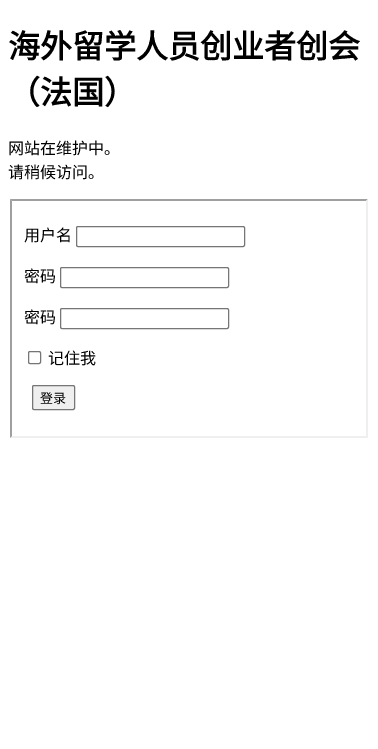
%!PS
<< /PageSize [378 749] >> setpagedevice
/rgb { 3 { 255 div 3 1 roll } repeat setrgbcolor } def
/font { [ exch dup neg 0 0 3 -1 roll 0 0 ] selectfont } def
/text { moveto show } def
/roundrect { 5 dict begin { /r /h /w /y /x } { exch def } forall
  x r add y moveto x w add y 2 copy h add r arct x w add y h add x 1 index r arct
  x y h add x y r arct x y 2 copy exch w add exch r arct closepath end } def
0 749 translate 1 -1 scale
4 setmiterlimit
255 255 255 rgb
0 0 378 749 rectfill
159 159 159 rgb
10 199 moveto 358 0 rlineto -2 2 rlineto -354 0 rlineto closepath fill
239 239 239 rgb
368 199 moveto 0 239 rlineto -2 -2 rlineto 0 -235 rlineto closepath fill
368 438 moveto -358 0 rlineto 2 -2 rlineto 354 0 rlineto closepath fill
159 159 159 rgb
10 438 moveto 0 -239 rlineto 2 2 rlineto 0 235 rlineto closepath fill
118 118 118 rgb
76.5 226.5 168 20 1.5 roundrect stroke
60.5 267.5 168 20 1.5 roundrect stroke
60.5 308.5 168 20 1.5 roundrect stroke
28.5 351.5 12 12 1.5 roundrect stroke
239 239 239 rgb
32.5 385.5 42 24 1.5 roundrect gsave fill grestore
118 118 118 rgb
stroke
/NotoSansCJKSC-Bold 32 font
0 0 0 rgb
(海外留学人员创业者创会) 8 58 text
(（法国）) 8 104 text
/NotoSansCJKSC-Regular 16 font
(网站在维护中。) 8 154 text
(请稍候访问。) 8 178 text
(用户名) 24 241 text
(密码) 24 282 text
(密码) 24 323 text
(记住我) 48 364 text
/NotoSansCJKSC-Regular 13 font
(登录) 40 403 text
showpage
